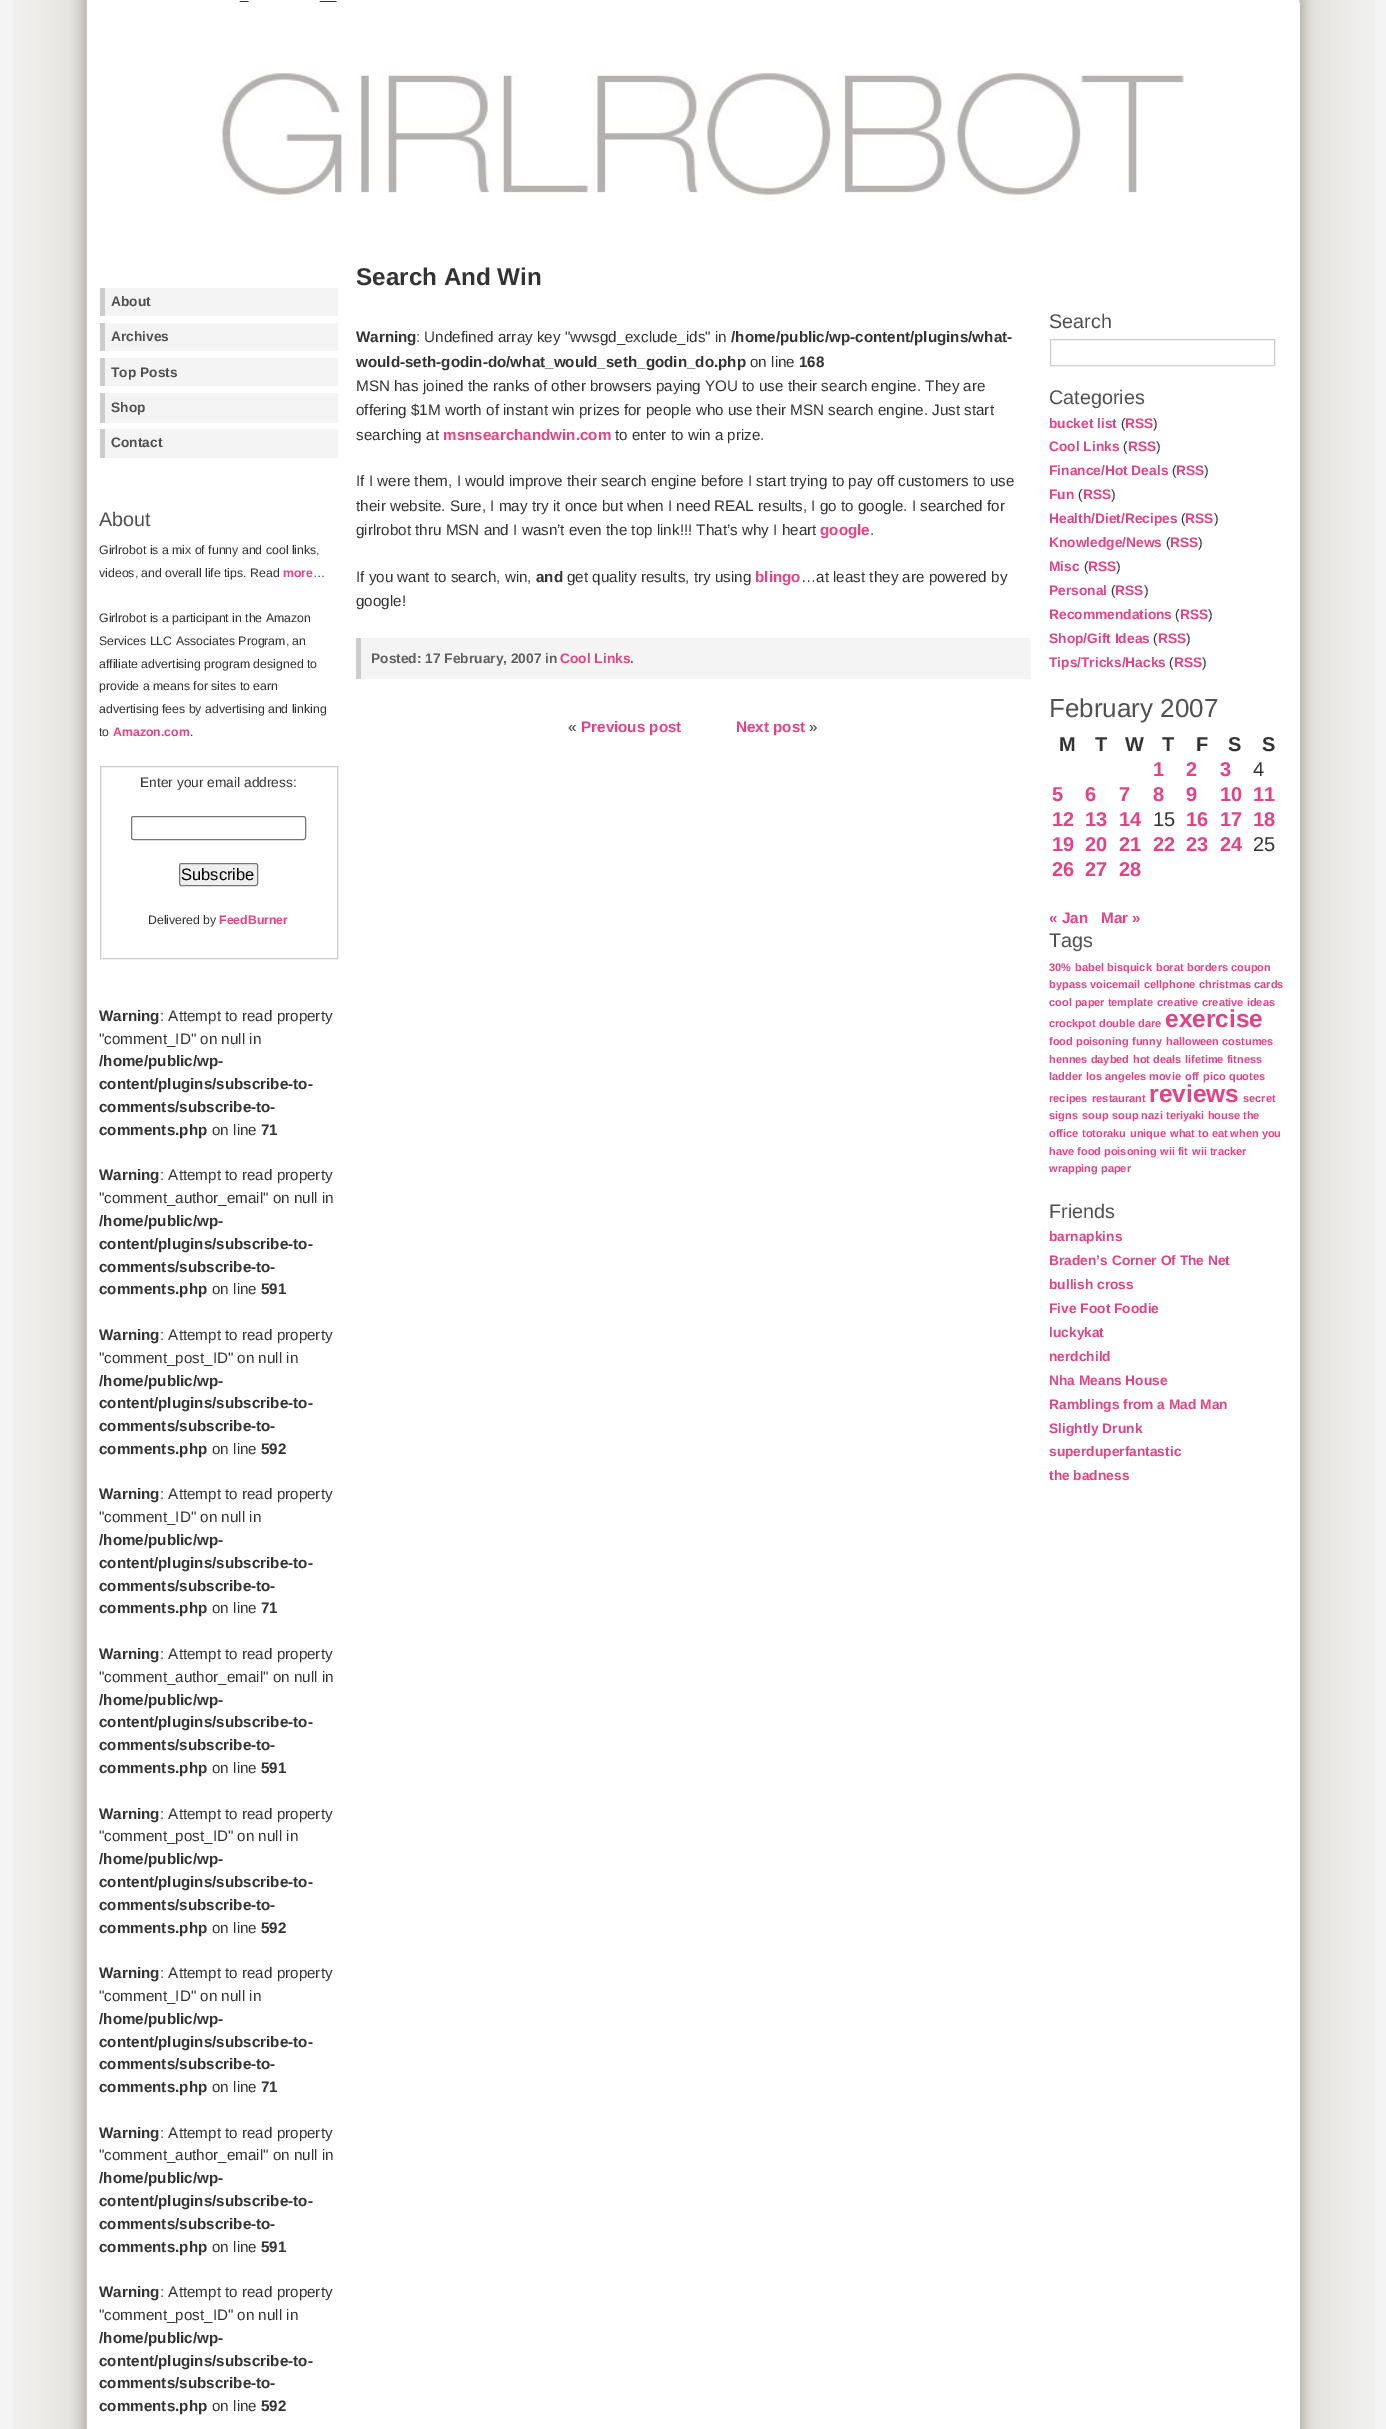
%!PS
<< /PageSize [1386 2429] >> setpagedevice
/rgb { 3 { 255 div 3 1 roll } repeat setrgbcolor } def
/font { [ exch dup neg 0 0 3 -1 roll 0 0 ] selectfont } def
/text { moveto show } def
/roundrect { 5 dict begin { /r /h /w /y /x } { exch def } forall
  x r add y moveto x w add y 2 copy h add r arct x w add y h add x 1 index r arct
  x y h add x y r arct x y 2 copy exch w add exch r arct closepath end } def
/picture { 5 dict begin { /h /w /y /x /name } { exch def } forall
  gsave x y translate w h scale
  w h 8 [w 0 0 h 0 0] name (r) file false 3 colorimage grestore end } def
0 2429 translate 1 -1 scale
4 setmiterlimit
244 244 244 rgb
0 0 1386 2429 rectfill
(img_01.rgb) 13 0 1361 2429 picture
255 255 255 rgb
1299 3 1 2426 rectfill
244 244 244 rgb
105 288 233 28 rectfill
204 204 204 rgb
100 288 5 28 rectfill
244 244 244 rgb
105 323 233 28 rectfill
204 204 204 rgb
100 323 5 28 rectfill
244 244 244 rgb
105 358 233 28 rectfill
204 204 204 rgb
100 358 5 28 rectfill
244 244 244 rgb
105 393 233 30 rectfill
204 204 204 rgb
100 393 5 30 rectfill
244 244 244 rgb
105 429 233 29 rectfill
204 204 204 rgb
100 429 5 29 rectfill
100.5 766.5 237 192 rectstroke
118 118 118 rgb
131.5 816.5 174 23 2 roundrect stroke
239 239 239 rgb
179.5 863.5 78 22 2 roundrect gsave fill grestore
118 118 118 rgb
stroke
244 244 244 rgb
361 638 670 41 rectfill
204 204 204 rgb
356 638 5 41 rectfill
1050.5 339.5 224 26 rectstroke
/LiberationSans-Regular 15.2 font
51 51 51 rgb
(_) 240 -1 text
(__) 320 -1 text
(img_02.rgb) 219 2 966 200 picture
/LiberationSans-Bold 13.75 font
80 80 80 rgb
(About) 111 306 text
(Archives) 111 341 text
(Top Posts) 111 377 text
(Shop) 111 412 text
(Contact) 111 447 text
/LiberationSans-Regular 19.75 font
(About) 99 526 text
/LiberationSans-Regular 12.3 font
51 51 51 rgb
(Girlrobot is a mix of funny and cool links,) 99 554 text
(videos, and overall life tips. Read) 99 577 text
/LiberationSans-Bold 12.3 font
227 66 132 rgb
(more) 283 577 text
/LiberationSans-Regular 12.3 font
51 51 51 rgb
(…) 313 577 text
(Girlrobot is a participant in the Amazon) 99 622 text
(Services LLC Associates Program, an) 99 645 text
(affiliate advertising program designed to) 99 668 text
(provide a means for sites to earn) 99 690 text
(advertising fees by advertising and linking) 99 713 text
(to) 99 736 text
/LiberationSans-Bold 12.3 font
227 66 132 rgb
(Amazon.com) 113 736 text
/LiberationSans-Regular 12.3 font
51 51 51 rgb
(.) 190 736 text
/LiberationSans-Regular 13.75 font
(Enter your email address:) 140 787 text
/LiberationSans-Regular 16.5 font
0 0 0 rgb
(Subscribe) 181 880 text
/LiberationSans-Regular 12.3 font
51 51 51 rgb
(Delivered by) 148 924 text
/LiberationSans-Bold 12.3 font
227 66 132 rgb
(FeedBurner) 219 924 text
/LiberationSans-Bold 15.2 font
51 51 51 rgb
(Warning) 99 1021 text
/LiberationSans-Regular 15.2 font
(: Attempt to read property) 160 1021 text
("comment_ID" on null in) 99 1044 text
/LiberationSans-Bold 15.2 font
(/home/public/wp-) 99 1066 text
(content/plugins/subscribe-to-) 99 1089 text
(comments/subscribe-to-) 99 1112 text
(comments.php) 99 1135 text
/LiberationSans-Regular 15.2 font
(on line) 212 1135 text
/LiberationSans-Bold 15.2 font
(71) 261 1135 text
(Warning) 99 1180 text
/LiberationSans-Regular 15.2 font
(: Attempt to read property) 160 1180 text
("comment_author_email" on null in) 99 1203 text
/LiberationSans-Bold 15.2 font
(/home/public/wp-) 99 1226 text
(content/plugins/subscribe-to-) 99 1249 text
(comments/subscribe-to-) 99 1272 text
(comments.php) 99 1294 text
/LiberationSans-Regular 15.2 font
(on line) 212 1294 text
/LiberationSans-Bold 15.2 font
(591) 261 1294 text
(Warning) 99 1340 text
/LiberationSans-Regular 15.2 font
(: Attempt to read property) 160 1340 text
("comment_post_ID" on null in) 99 1363 text
/LiberationSans-Bold 15.2 font
(/home/public/wp-) 99 1386 text
(content/plugins/subscribe-to-) 99 1408 text
(comments/subscribe-to-) 99 1431 text
(comments.php) 99 1454 text
/LiberationSans-Regular 15.2 font
(on line) 212 1454 text
/LiberationSans-Bold 15.2 font
(592) 261 1454 text
(Warning) 99 1499 text
/LiberationSans-Regular 15.2 font
(: Attempt to read property) 160 1499 text
("comment_ID" on null in) 99 1522 text
/LiberationSans-Bold 15.2 font
(/home/public/wp-) 99 1545 text
(content/plugins/subscribe-to-) 99 1568 text
(comments/subscribe-to-) 99 1591 text
(comments.php) 99 1613 text
/LiberationSans-Regular 15.2 font
(on line) 212 1613 text
/LiberationSans-Bold 15.2 font
(71) 261 1613 text
(Warning) 99 1659 text
/LiberationSans-Regular 15.2 font
(: Attempt to read property) 160 1659 text
("comment_author_email" on null in) 99 1682 text
/LiberationSans-Bold 15.2 font
(/home/public/wp-) 99 1705 text
(content/plugins/subscribe-to-) 99 1727 text
(comments/subscribe-to-) 99 1750 text
(comments.php) 99 1773 text
/LiberationSans-Regular 15.2 font
(on line) 212 1773 text
/LiberationSans-Bold 15.2 font
(591) 261 1773 text
(Warning) 99 1819 text
/LiberationSans-Regular 15.2 font
(: Attempt to read property) 160 1819 text
("comment_post_ID" on null in) 99 1841 text
/LiberationSans-Bold 15.2 font
(/home/public/wp-) 99 1864 text
(content/plugins/subscribe-to-) 99 1887 text
(comments/subscribe-to-) 99 1910 text
(comments.php) 99 1933 text
/LiberationSans-Regular 15.2 font
(on line) 212 1933 text
/LiberationSans-Bold 15.2 font
(592) 261 1933 text
(Warning) 99 1978 text
/LiberationSans-Regular 15.2 font
(: Attempt to read property) 160 1978 text
("comment_ID" on null in) 99 2001 text
/LiberationSans-Bold 15.2 font
(/home/public/wp-) 99 2024 text
(content/plugins/subscribe-to-) 99 2047 text
(comments/subscribe-to-) 99 2069 text
(comments.php) 99 2092 text
/LiberationSans-Regular 15.2 font
(on line) 212 2092 text
/LiberationSans-Bold 15.2 font
(71) 261 2092 text
(Warning) 99 2138 text
/LiberationSans-Regular 15.2 font
(: Attempt to read property) 160 2138 text
("comment_author_email" on null in) 99 2160 text
/LiberationSans-Bold 15.2 font
(/home/public/wp-) 99 2183 text
(content/plugins/subscribe-to-) 99 2206 text
(comments/subscribe-to-) 99 2229 text
(comments.php) 99 2252 text
/LiberationSans-Regular 15.2 font
(on line) 212 2252 text
/LiberationSans-Bold 15.2 font
(591) 261 2252 text
(Warning) 99 2297 text
/LiberationSans-Regular 15.2 font
(: Attempt to read property) 160 2297 text
("comment_post_ID" on null in) 99 2320 text
/LiberationSans-Bold 15.2 font
(/home/public/wp-) 99 2343 text
(content/plugins/subscribe-to-) 99 2366 text
(comments/subscribe-to-) 99 2388 text
(comments.php) 99 2411 text
/LiberationSans-Regular 15.2 font
(on line) 212 2411 text
/LiberationSans-Bold 15.2 font
(592) 261 2411 text
/LiberationSans-Bold 24.25 font
(Search And Win) 356 285 text
/LiberationSans-Bold 15.2 font
(Warning) 356 342 text
/LiberationSans-Regular 15.2 font
(: Undefined array key "wwsgd_exclude_ids" in) 416 342 text
/LiberationSans-Bold 15.2 font
(/home/public/wp-content/plugins/what-) 731 342 text
(would-seth-godin-do/what_would_seth_godin_do.php) 356 367 text
/LiberationSans-Regular 15.2 font
(on line) 750 367 text
/LiberationSans-Bold 15.2 font
(168) 799 367 text
/LiberationSans-Regular 15.2 font
(MSN has joined the ranks of other browsers paying YOU to use their search engine. They are) 356 391 text
(offering $1M worth of instant win prizes for people who use their MSN search engine. Just start) 356 415 text
(searching at) 356 440 text
/LiberationSans-Bold 15.2 font
227 66 132 rgb
(msnsearchandwin.com) 443 440 text
/LiberationSans-Regular 15.2 font
51 51 51 rgb
(to enter to win a prize.) 615 440 text
(If I were them, I would improve their search engine before I start trying to pay off customers to use) 356 486 text
(their website. Sure, I may try it once but when I need REAL results, I go to google. I searched for) 356 511 text
(girlrobot thru MSN and I wasn’t even the top link!!! That’s why I heart) 356 535 text
/LiberationSans-Bold 15.2 font
227 66 132 rgb
(google) 820 535 text
/LiberationSans-Regular 15.2 font
51 51 51 rgb
(.) 870 535 text
(If you want to search, win,) 356 582 text
/LiberationSans-Bold 15.2 font
(and) 536 582 text
/LiberationSans-Regular 15.2 font
(get quality results, try using) 567 582 text
/LiberationSans-Bold 15.2 font
227 66 132 rgb
(blingo) 755 582 text
/LiberationSans-Regular 15.2 font
51 51 51 rgb
(…at least they are powered by) 801 582 text
(google!) 356 606 text
/LiberationSans-Bold 13.75 font
96 96 96 rgb
(Posted: 17 February, 2007 in) 371 663 text
227 66 132 rgb
(Cool Links) 560 663 text
96 96 96 rgb
(.) 630 663 text
/LiberationSans-Regular 15.2 font
51 51 51 rgb
(«) 568 732 text
/LiberationSans-Bold 15.2 font
227 66 132 rgb
(Previous post) 581 732 text
(Next post) 736 732 text
/LiberationSans-Regular 15.2 font
51 51 51 rgb
(») 809 732 text
/LiberationSans-Regular 19.75 font
80 80 80 rgb
(Search) 1049 328 text
(Categories) 1049 404 text
/LiberationSans-Bold 13.75 font
227 66 132 rgb
(bucket list) 1049 428 text
/LiberationSans-Regular 13.75 font
51 51 51 rgb
(\() 1121 428 text
/LiberationSans-Bold 13.75 font
227 66 132 rgb
(RSS) 1125 428 text
/LiberationSans-Regular 13.75 font
51 51 51 rgb
(\)) 1153 428 text
/LiberationSans-Bold 13.75 font
227 66 132 rgb
(Cool Links) 1049 451 text
/LiberationSans-Regular 13.75 font
51 51 51 rgb
(\() 1123 451 text
/LiberationSans-Bold 13.75 font
227 66 132 rgb
(RSS) 1128 451 text
/LiberationSans-Regular 13.75 font
51 51 51 rgb
(\)) 1156 451 text
/LiberationSans-Bold 13.75 font
227 66 132 rgb
(Finance/Hot Deals) 1049 475 text
/LiberationSans-Regular 13.75 font
51 51 51 rgb
(\() 1172 475 text
/LiberationSans-Bold 13.75 font
227 66 132 rgb
(RSS) 1176 475 text
/LiberationSans-Regular 13.75 font
51 51 51 rgb
(\)) 1204 475 text
/LiberationSans-Bold 13.75 font
227 66 132 rgb
(Fun) 1049 499 text
/LiberationSans-Regular 13.75 font
51 51 51 rgb
(\() 1078 499 text
/LiberationSans-Bold 13.75 font
227 66 132 rgb
(RSS) 1083 499 text
/LiberationSans-Regular 13.75 font
51 51 51 rgb
(\)) 1111 499 text
/LiberationSans-Bold 13.75 font
227 66 132 rgb
(Health/Diet/Recipes) 1049 523 text
/LiberationSans-Regular 13.75 font
51 51 51 rgb
(\() 1181 523 text
/LiberationSans-Bold 13.75 font
227 66 132 rgb
(RSS) 1185 523 text
/LiberationSans-Regular 13.75 font
51 51 51 rgb
(\)) 1214 523 text
/LiberationSans-Bold 13.75 font
227 66 132 rgb
(Knowledge/News) 1049 547 text
/LiberationSans-Regular 13.75 font
51 51 51 rgb
(\() 1166 547 text
/LiberationSans-Bold 13.75 font
227 66 132 rgb
(RSS) 1170 547 text
/LiberationSans-Regular 13.75 font
51 51 51 rgb
(\)) 1198 547 text
/LiberationSans-Bold 13.75 font
227 66 132 rgb
(Misc) 1049 571 text
/LiberationSans-Regular 13.75 font
51 51 51 rgb
(\() 1084 571 text
/LiberationSans-Bold 13.75 font
227 66 132 rgb
(RSS) 1088 571 text
/LiberationSans-Regular 13.75 font
51 51 51 rgb
(\)) 1116 571 text
/LiberationSans-Bold 13.75 font
227 66 132 rgb
(Personal) 1049 595 text
/LiberationSans-Regular 13.75 font
51 51 51 rgb
(\() 1111 595 text
/LiberationSans-Bold 13.75 font
227 66 132 rgb
(RSS) 1115 595 text
/LiberationSans-Regular 13.75 font
51 51 51 rgb
(\)) 1144 595 text
/LiberationSans-Bold 13.75 font
227 66 132 rgb
(Recommendations) 1049 619 text
/LiberationSans-Regular 13.75 font
51 51 51 rgb
(\() 1175 619 text
/LiberationSans-Bold 13.75 font
227 66 132 rgb
(RSS) 1180 619 text
/LiberationSans-Regular 13.75 font
51 51 51 rgb
(\)) 1208 619 text
/LiberationSans-Bold 13.75 font
227 66 132 rgb
(Shop/Gift Ideas) 1049 643 text
/LiberationSans-Regular 13.75 font
51 51 51 rgb
(\() 1153 643 text
/LiberationSans-Bold 13.75 font
227 66 132 rgb
(RSS) 1158 643 text
/LiberationSans-Regular 13.75 font
51 51 51 rgb
(\)) 1186 643 text
/LiberationSans-Bold 13.75 font
227 66 132 rgb
(Tips/Tricks/Hacks) 1049 667 text
/LiberationSans-Regular 13.75 font
51 51 51 rgb
(\() 1169 667 text
/LiberationSans-Bold 13.75 font
227 66 132 rgb
(RSS) 1174 667 text
/LiberationSans-Regular 13.75 font
51 51 51 rgb
(\)) 1202 667 text
/LiberationSans-Regular 26 font
80 80 80 rgb
(February 2007) 1049 717 text
/LiberationSans-Bold 20 font
51 51 51 rgb
(M) 1059 751 text
(T) 1095 751 text
(W) 1125 751 text
(T) 1162 751 text
(F) 1196 751 text
(S) 1228 751 text
(S) 1262 751 text
227 66 132 rgb
(1) 1153 776 text
(2) 1186 776 text
(3) 1220 776 text
/LiberationSans-Regular 20 font
51 51 51 rgb
(4) 1253 776 text
/LiberationSans-Bold 20 font
227 66 132 rgb
(5) 1052 801 text
(6) 1085 801 text
(7) 1119 801 text
(8) 1153 801 text
(9) 1186 801 text
(10) 1220 801 text
(11) 1253 801 text
(12) 1052 826 text
(13) 1085 826 text
(14) 1119 826 text
/LiberationSans-Regular 20 font
51 51 51 rgb
(15) 1153 826 text
/LiberationSans-Bold 20 font
227 66 132 rgb
(16) 1186 826 text
(17) 1220 826 text
(18) 1253 826 text
(19) 1052 851 text
(20) 1085 851 text
(21) 1119 851 text
(22) 1153 851 text
(23) 1186 851 text
(24) 1220 851 text
/LiberationSans-Regular 20 font
51 51 51 rgb
(25) 1253 851 text
/LiberationSans-Bold 20 font
227 66 132 rgb
(26) 1052 876 text
(27) 1085 876 text
(28) 1119 876 text
/LiberationSans-Bold 15.2 font
(« Jan) 1049 923 text
(Mar ») 1101 923 text
/LiberationSans-Regular 19.75 font
80 80 80 rgb
(Tags) 1049 947 text
/LiberationSans-Bold 11 font
227 66 132 rgb
(30%) 1049 971 text
(babel) 1075 971 text
(bisquick) 1107 971 text
(borat) 1156 971 text
(borders coupon) 1187 971 text
(bypass voicemail) 1049 988 text
(cellphone) 1144 988 text
(christmas cards) 1199 988 text
(cool paper template) 1049 1006 text
(creative) 1157 1006 text
(creative ideas) 1202 1006 text
(crockpot) 1049 1027 text
(double dare) 1099 1027 text
/LiberationSans-Bold 24.5 font
(exercise) 1165 1027 text
/LiberationSans-Bold 11 font
(food poisoning) 1049 1045 text
(funny) 1132 1045 text
(halloween costumes) 1166 1045 text
(hennes daybed) 1049 1063 text
(hot deals) 1133 1063 text
(lifetime fitness) 1185 1063 text
(ladder) 1049 1080 text
(los angeles) 1086 1080 text
(movie) 1149 1080 text
(off) 1185 1080 text
(pico) 1203 1080 text
(quotes) 1229 1080 text
(recipes) 1049 1102 text
(restaurant) 1092 1102 text
/LiberationSans-Bold 24.5 font
(reviews) 1149 1102 text
/LiberationSans-Bold 11 font
(secret) 1243 1102 text
(signs) 1049 1119 text
(soup) 1082 1119 text
(soup nazi) 1112 1119 text
(teriyaki house) 1166 1119 text
(the) 1243 1119 text
(office) 1049 1137 text
(totoraku) 1082 1137 text
(unique) 1130 1137 text
(what to eat when you) 1170 1137 text
(have food poisoning) 1049 1155 text
(wii fit) 1160 1155 text
(wii tracker) 1192 1155 text
(wrapping paper) 1049 1172 text
/LiberationSans-Regular 19.75 font
80 80 80 rgb
(Friends) 1049 1218 text
/LiberationSans-Bold 13.75 font
227 66 132 rgb
(barnapkins) 1049 1241 text
(Braden’s Corner Of The Net) 1049 1265 text
(bullish cross) 1049 1289 text
(Five Foot Foodie) 1049 1313 text
(luckykat) 1049 1337 text
(nerdchild) 1049 1361 text
(Nha Means House) 1049 1385 text
(Ramblings from a Mad Man) 1049 1409 text
(Slightly Drunk) 1049 1433 text
(superduperfantastic) 1049 1456 text
(the badness) 1049 1480 text
showpage
